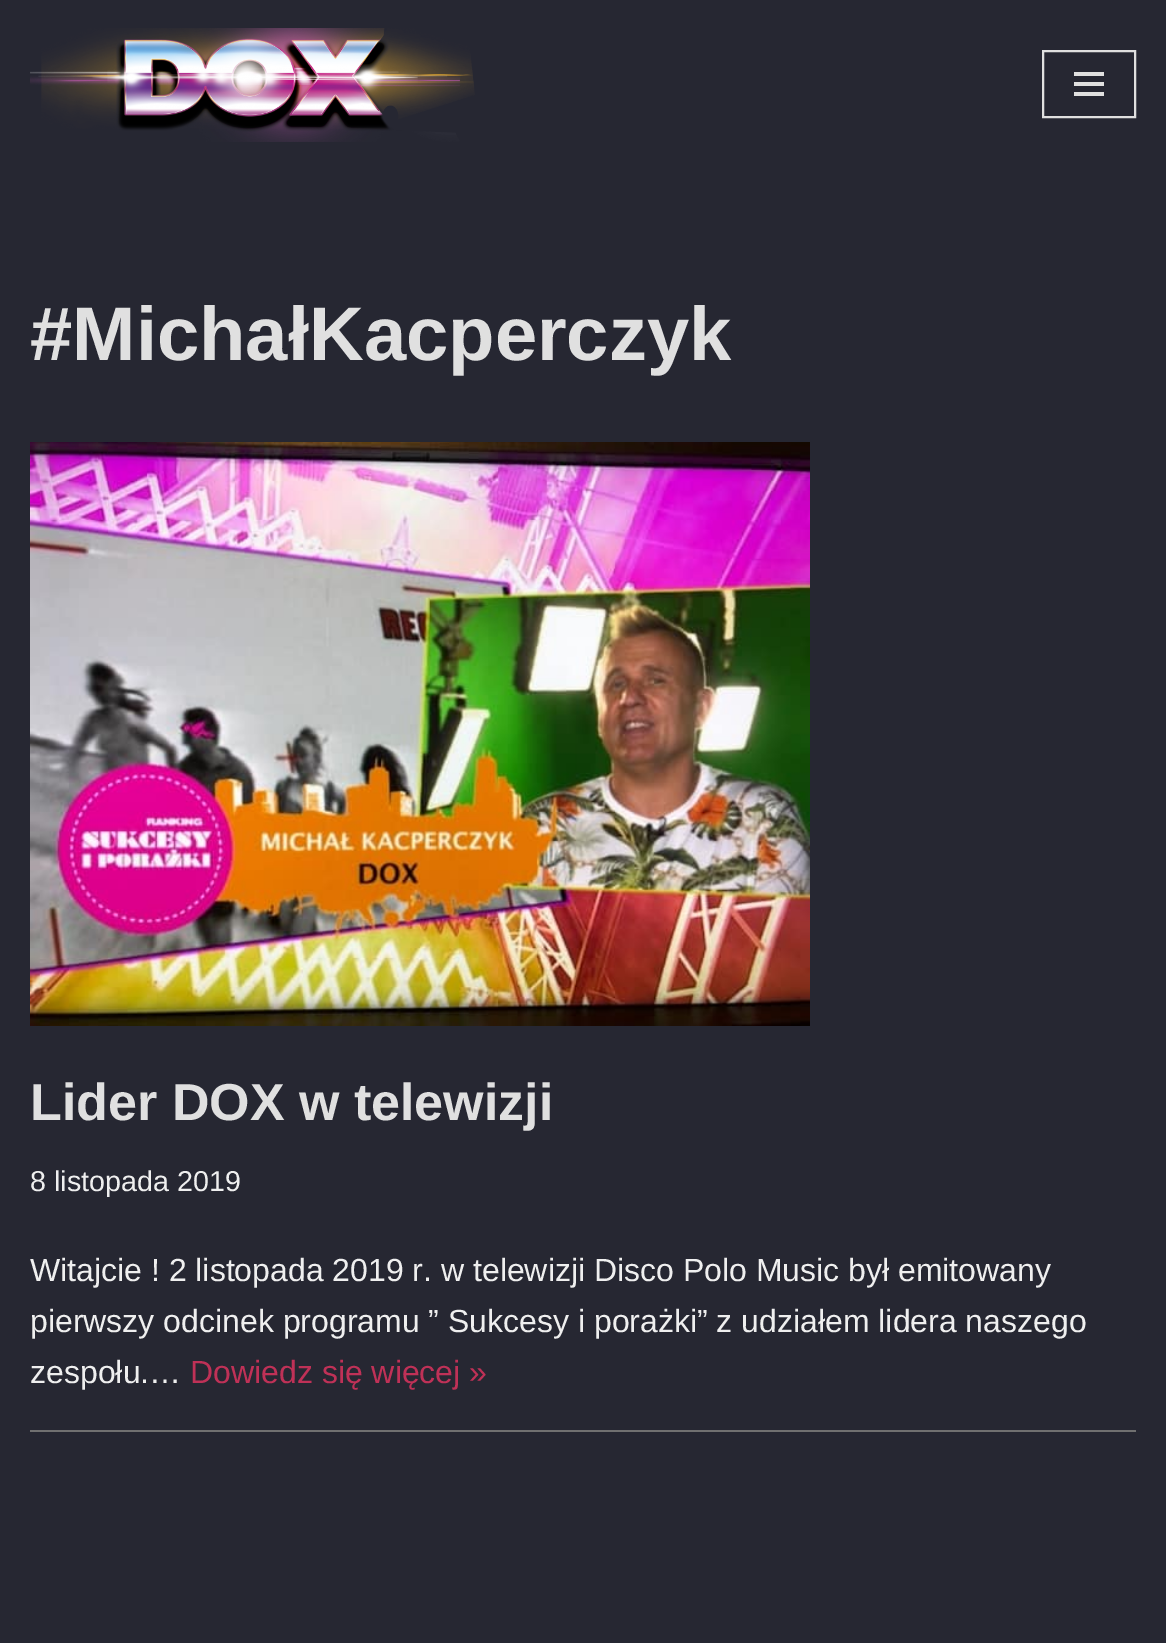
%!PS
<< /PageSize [1166 1643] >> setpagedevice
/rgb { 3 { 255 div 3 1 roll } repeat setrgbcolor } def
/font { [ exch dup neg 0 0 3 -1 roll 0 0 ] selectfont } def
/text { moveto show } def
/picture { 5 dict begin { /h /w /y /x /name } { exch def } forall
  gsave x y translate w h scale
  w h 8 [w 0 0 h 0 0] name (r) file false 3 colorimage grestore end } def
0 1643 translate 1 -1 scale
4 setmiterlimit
38 39 50 rgb
0 0 1166 1643 rectfill
(img_01.rgb) 30 28 445 114 picture
224 224 224 rgb
2 setlinewidth
1043 51 92 66 rectstroke
1074 72 30 4 rectfill
1074 82 30 4 rectfill
1074 92 30 4 rectfill
112 112 112 rgb
30 1430 1106 2 rectfill
(img_02.rgb) 30 442 780 584 picture
/LiberationSans-Bold 76 font
224 224 224 rgb
(#MichałKacperczyk) 30 360 text
/LiberationSans-Bold 52 font
(Lider DOX w telewizji) 30 1120 text
/LiberationSans-Regular 28.75 font
239 239 239 rgb
(8 listopada 2019) 30 1191 text
/LiberationSans-Regular 32 font
(Witajcie ! 2 listopada 2019 r. w telewizji Disco Polo Music był emitowany) 30 1281 text
(pierwszy odcinek programu ” Sukcesy i porażki” z udziałem lidera naszego) 30 1332 text
(zespołu.…) 30 1383 text
191 49 87 rgb
(Dowiedz się więcej ») 190 1383 text
showpage
